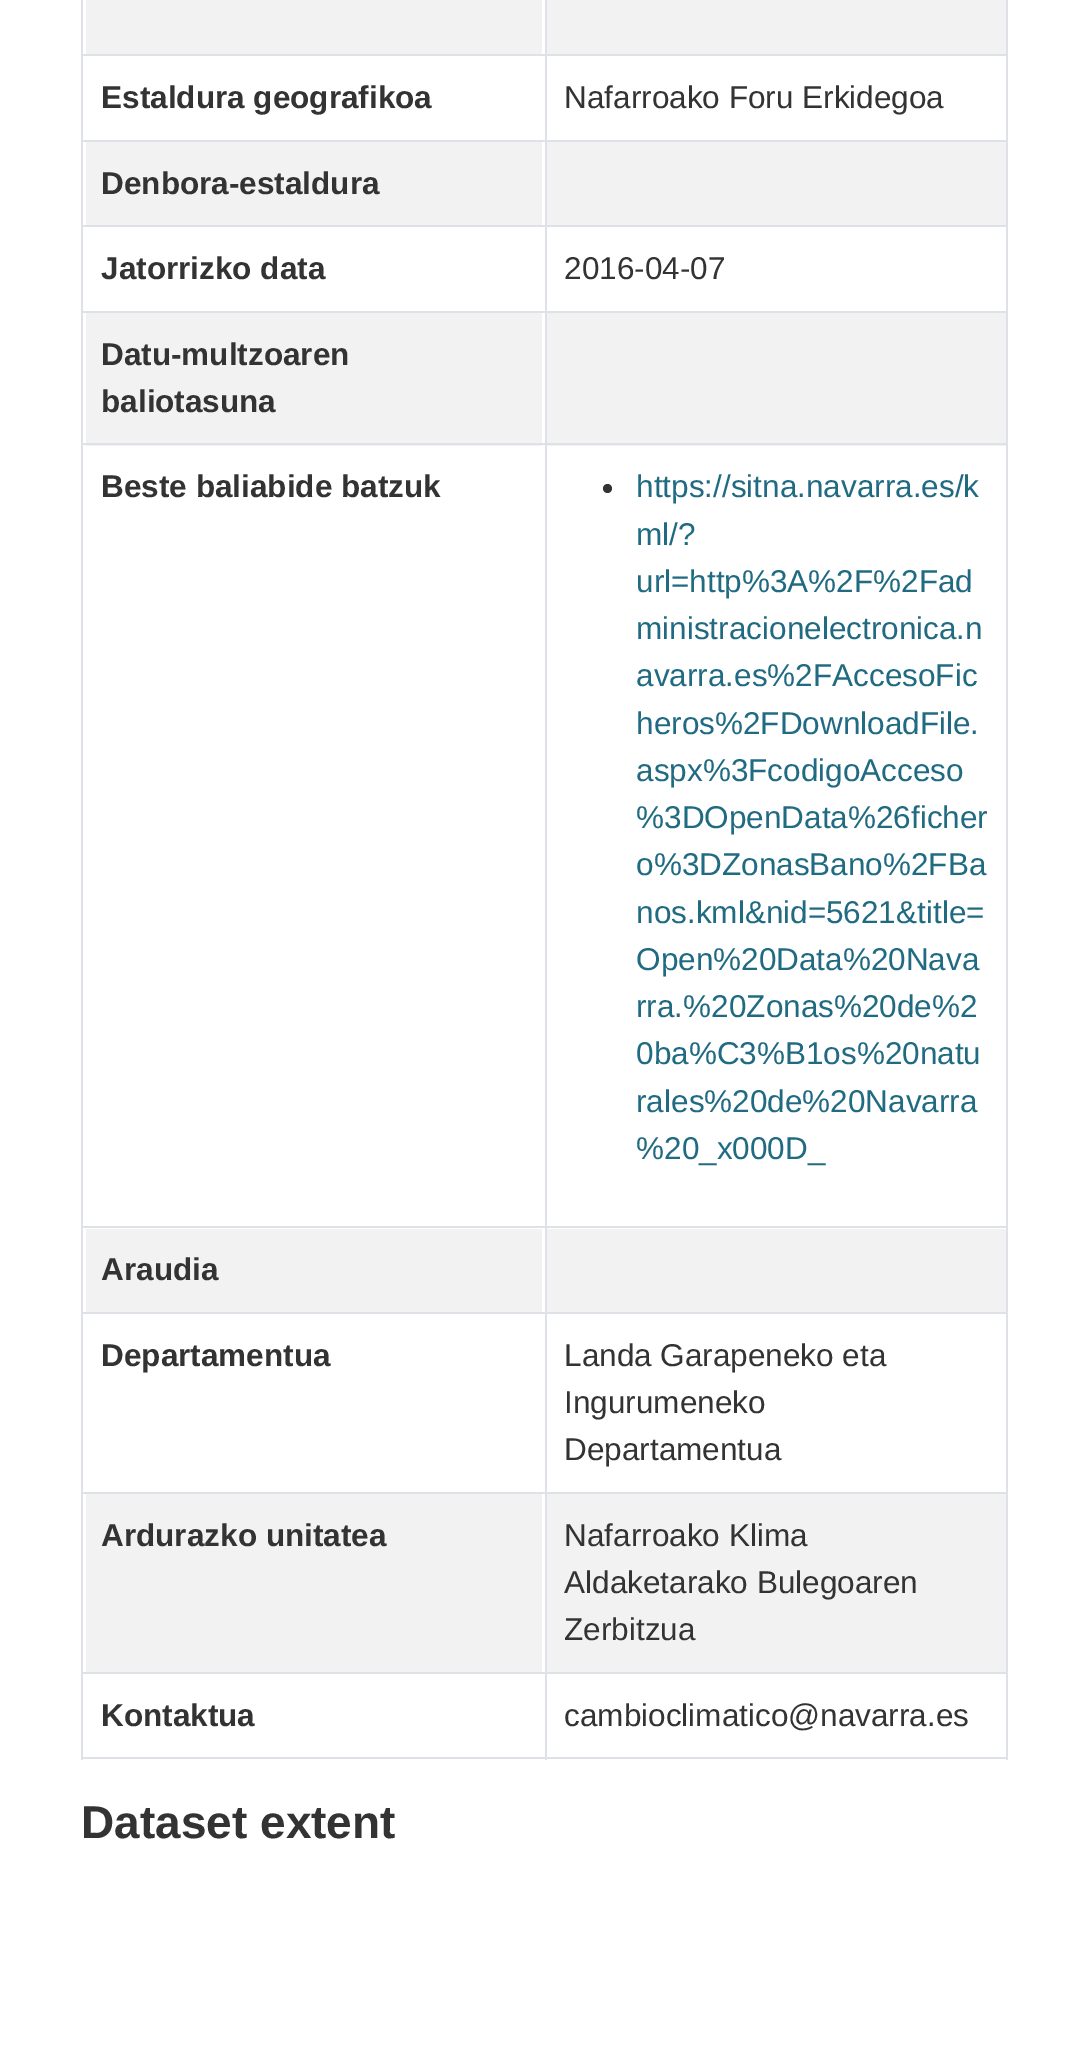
%!PS
<< /PageSize [1088 2054] >> setpagedevice
/rgb { 3 { 255 div 3 1 roll } repeat setrgbcolor } def
/font { [ exch dup neg 0 0 3 -1 roll 0 0 ] selectfont } def
/text { moveto show } def
/circle { newpath 0 360 arc closepath } def
0 2054 translate 1 -1 scale
4 setmiterlimit
255 255 255 rgb
0 0 1088 2054 rectfill
222 226 230 rgb
81 54 927 2 rectfill
242 242 242 rgb
86 0 456 54 rectfill
547 0 459 54 rectfill
222 226 230 rgb
81 140 927 2 rectfill
81 225 927 2 rectfill
242 242 242 rgb
86 142 456 83 rectfill
547 142 459 83 rectfill
222 226 230 rgb
81 311 927 2 rectfill
242 242 242 rgb
86 313 456 133 rectfill
547 313 459 133 rectfill
222 226 230 rgb
81 443 927 2 rectfill
81 1226 927 2 rectfill
51 51 51 rgb
607.5 488.5 4.5 circle fill
222 226 230 rgb
81 1312 927 2 rectfill
242 242 242 rgb
86 1229 456 83 rectfill
547 1229 459 83 rectfill
222 226 230 rgb
81 1492 927 2 rectfill
81 1672 927 2 rectfill
242 242 242 rgb
86 1494 456 178 rectfill
547 1494 459 178 rectfill
222 226 230 rgb
81 1757 927 2 rectfill
81 0 2 1760 rectfill
1006 0 2 1760 rectfill
545 0 2 1760 rectfill
/LiberationSans-Bold 31.5 font
51 51 51 rgb
(Estaldura geografikoa) 101 108 text
/LiberationSans-Regular 31.5 font
(Nafarroako Foru Erkidegoa) 564 108 text
/LiberationSans-Bold 31.5 font
(Denbora-estaldura) 101 194 text
(Jatorrizko data) 101 279 text
/LiberationSans-Regular 31.5 font
(2016-04-07) 564 279 text
/LiberationSans-Bold 31.5 font
(Datu-multzoaren) 101 365 text
(baliotasuna) 101 412 text
(Beste baliabide batzuk) 101 497 text
/LiberationSans-Regular 31.5 font
32 107 130 rgb
(https://sitna.navarra.es/k) 636 497 text
(ml/?) 636 545 text
(url=http%3A%2F%2Fad) 636 592 text
(ministracionelectronica.n) 636 639 text
(avarra.es%2FAccesoFic) 636 686 text
(heros%2FDownloadFile.) 636 734 text
(aspx%3FcodigoAcceso) 636 781 text
(%3DOpenData%26ficher) 636 828 text
(o%3DZonasBano%2FBa) 636 875 text
(nos.kml&nid=5621&title=) 636 923 text
(Open%20Data%20Nava) 636 970 text
(rra.%20Zonas%20de%2) 636 1017 text
(0ba%C3%B1os%20natu) 636 1064 text
(rales%20de%20Navarra) 636 1112 text
(%20_x000D_) 636 1159 text
/LiberationSans-Bold 31.5 font
51 51 51 rgb
(Araudia) 101 1280 text
(Departamentua) 101 1366 text
/LiberationSans-Regular 31.5 font
(Landa Garapeneko eta) 564 1366 text
(Ingurumeneko) 564 1413 text
(Departamentua) 564 1460 text
/LiberationSans-Bold 31.5 font
(Ardurazko unitatea) 101 1546 text
/LiberationSans-Regular 31.5 font
(Nafarroako Klima) 564 1546 text
(Aldaketarako Bulegoaren) 564 1593 text
(Zerbitzua) 564 1640 text
/LiberationSans-Bold 31.5 font
(Kontaktua) 101 1726 text
/LiberationSans-Regular 31.5 font
(cambioclimatico@navarra.es) 564 1726 text
/LiberationSans-Bold 46 font
(Dataset extent) 81 1838 text
showpage
